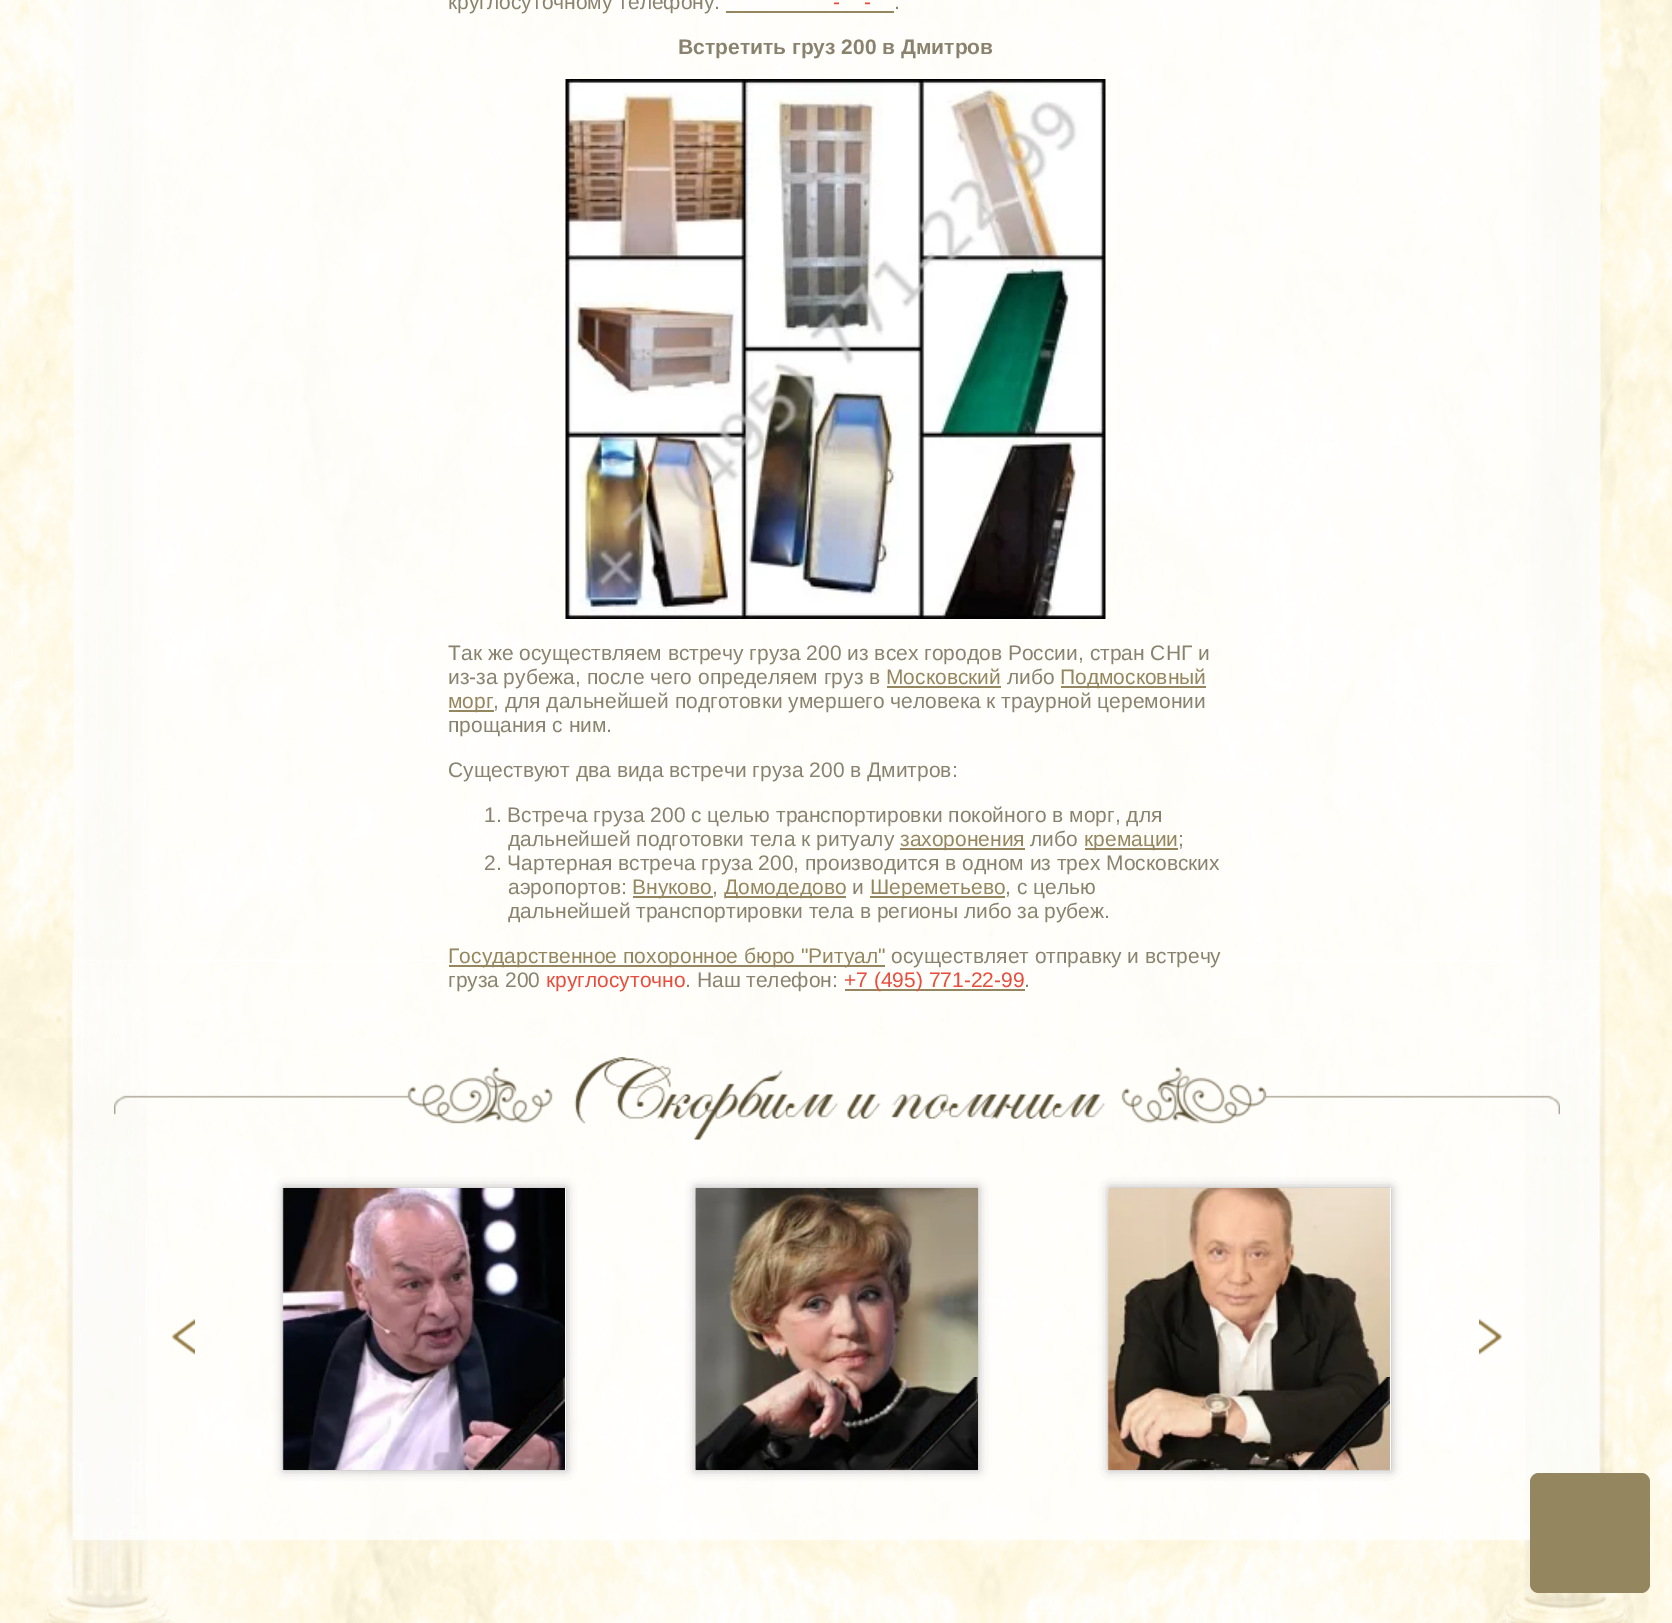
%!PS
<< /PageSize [1672 1623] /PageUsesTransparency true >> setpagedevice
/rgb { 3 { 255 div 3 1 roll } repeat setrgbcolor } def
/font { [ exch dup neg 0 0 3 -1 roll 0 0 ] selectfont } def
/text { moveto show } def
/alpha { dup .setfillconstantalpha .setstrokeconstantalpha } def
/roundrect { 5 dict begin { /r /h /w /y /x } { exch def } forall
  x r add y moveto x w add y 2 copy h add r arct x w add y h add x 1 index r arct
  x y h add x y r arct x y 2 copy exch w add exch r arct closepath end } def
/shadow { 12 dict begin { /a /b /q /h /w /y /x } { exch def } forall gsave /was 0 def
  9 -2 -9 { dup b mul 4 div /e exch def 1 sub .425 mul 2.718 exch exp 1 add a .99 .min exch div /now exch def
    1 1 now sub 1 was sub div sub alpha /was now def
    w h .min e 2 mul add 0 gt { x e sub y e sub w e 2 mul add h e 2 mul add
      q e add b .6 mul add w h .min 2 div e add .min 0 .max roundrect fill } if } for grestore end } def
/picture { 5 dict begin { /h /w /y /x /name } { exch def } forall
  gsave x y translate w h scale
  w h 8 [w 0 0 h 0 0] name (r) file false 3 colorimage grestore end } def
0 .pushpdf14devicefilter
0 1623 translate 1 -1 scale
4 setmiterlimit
255 255 255 rgb
0 0 1672 1623 rectfill
(img_01.rgb) 0 0 1672 1623 picture
(img_02.rgb) 73 0 1528 961 picture
148 134 94 rgb
726 11 168 2 rectfill
(img_03.rgb) 565 79 541 540 picture
887 686 114 2 rectfill
1061 686 145 2 rectfill
449 710 45 2 rectfill
900 848 125 2 rectfill
1085 848 93 2 rectfill
633 896 80 2 rectfill
725 896 121 2 rectfill
870 896 135 2 rectfill
(img_04.rgb) 41 959 1593 664 picture
449 965 436 2 rectfill
845 989 180 2 rectfill
(img_05.rgb) 114 1057 1446 83 picture
(img_06.rgb) 172 1319 23 36 picture
170 170 170 rgb
284 1188 282 282 0 5 1 shadow
255 255 255 rgb
565 1188 1 282 rectfill
(img_07.rgb) 282 1188 283 282 picture
(img_08.rgb) 473 1377 92 93 picture
170 170 170 rgb
696 1188 282 282 0 5 1 shadow
(img_09.rgb) 695 1188 283 282 picture
(img_10.rgb) 886 1377 92 93 picture
1109 1188 282 282 0 5 1 shadow
255 255 255 rgb
1390 1188 1 282 rectfill
(img_11.rgb) 1107 1188 283 282 picture
(img_12.rgb) 1298 1377 92 93 picture
(img_13.rgb) 1479 1319 23 36 picture
148 134 94 rgb
1530 1473 120 120 9 roundrect fill
/LiberationSans-Regular 21 font
137 130 110 rgb
(круглосуточному телефону:) 448 9 text
231 76 60 rgb
(-) 833 9 text
(-) 864 9 text
137 130 110 rgb
(.) 894 9 text
/LiberationSans-Bold 21 font
(Встретить груз 200 в Дмитров) 678 54 text
/LiberationSans-Regular 21 font
(Так же осуществляем встречу груза 200 из всех городов России, стран СНГ и) 448 660 text
(из-за рубежа, после чего определяем груз в) 448 684 text
148 134 94 rgb
(Московский) 886 684 text
137 130 110 rgb
(либо) 1007 684 text
148 134 94 rgb
(Подмосковный) 1060 684 text
(морг) 448 708 text
137 130 110 rgb
(, для дальнейшей подготовки умершего человека к траурной церемонии) 493 708 text
(прощания с ним.) 448 732 text
(Существуют два вида встречи груза 200 в Дмитров:) 448 777 text
(1. Встреча груза 200 с целью транспортировки покойного в морг, для) 484 822 text
(дальнейшей подготовки тела к ритуалу) 508 846 text
148 134 94 rgb
(захоронения) 900 846 text
137 130 110 rgb
(либо) 1030 846 text
148 134 94 rgb
(кремации) 1084 846 text
137 130 110 rgb
(;) 1178 846 text
(2. Чартерная встреча груза 200, производится в одном из трех Московских) 484 870 text
(аэропортов:) 508 894 text
148 134 94 rgb
(Внуково) 632 894 text
137 130 110 rgb
(,) 712 894 text
148 134 94 rgb
(Домодедово) 724 894 text
137 130 110 rgb
(и) 852 894 text
148 134 94 rgb
(Шереметьево) 870 894 text
137 130 110 rgb
(, с целью) 1005 894 text
(дальнейшей транспортировки тела в регионы либо за рубеж.) 508 918 text
148 134 94 rgb
(Государственное похоронное бюро "Ритуал") 448 963 text
137 130 110 rgb
(осуществляет отправку и встречу) 891 963 text
(груза 200) 448 987 text
231 76 60 rgb
(круглосуточно) 546 987 text
137 130 110 rgb
(. Наш телефон:) 685 987 text
231 76 60 rgb
(+7 \(495\) 771-22-99) 844 987 text
137 130 110 rgb
(.) 1024 987 text
.poppdf14devicefilter showpage
